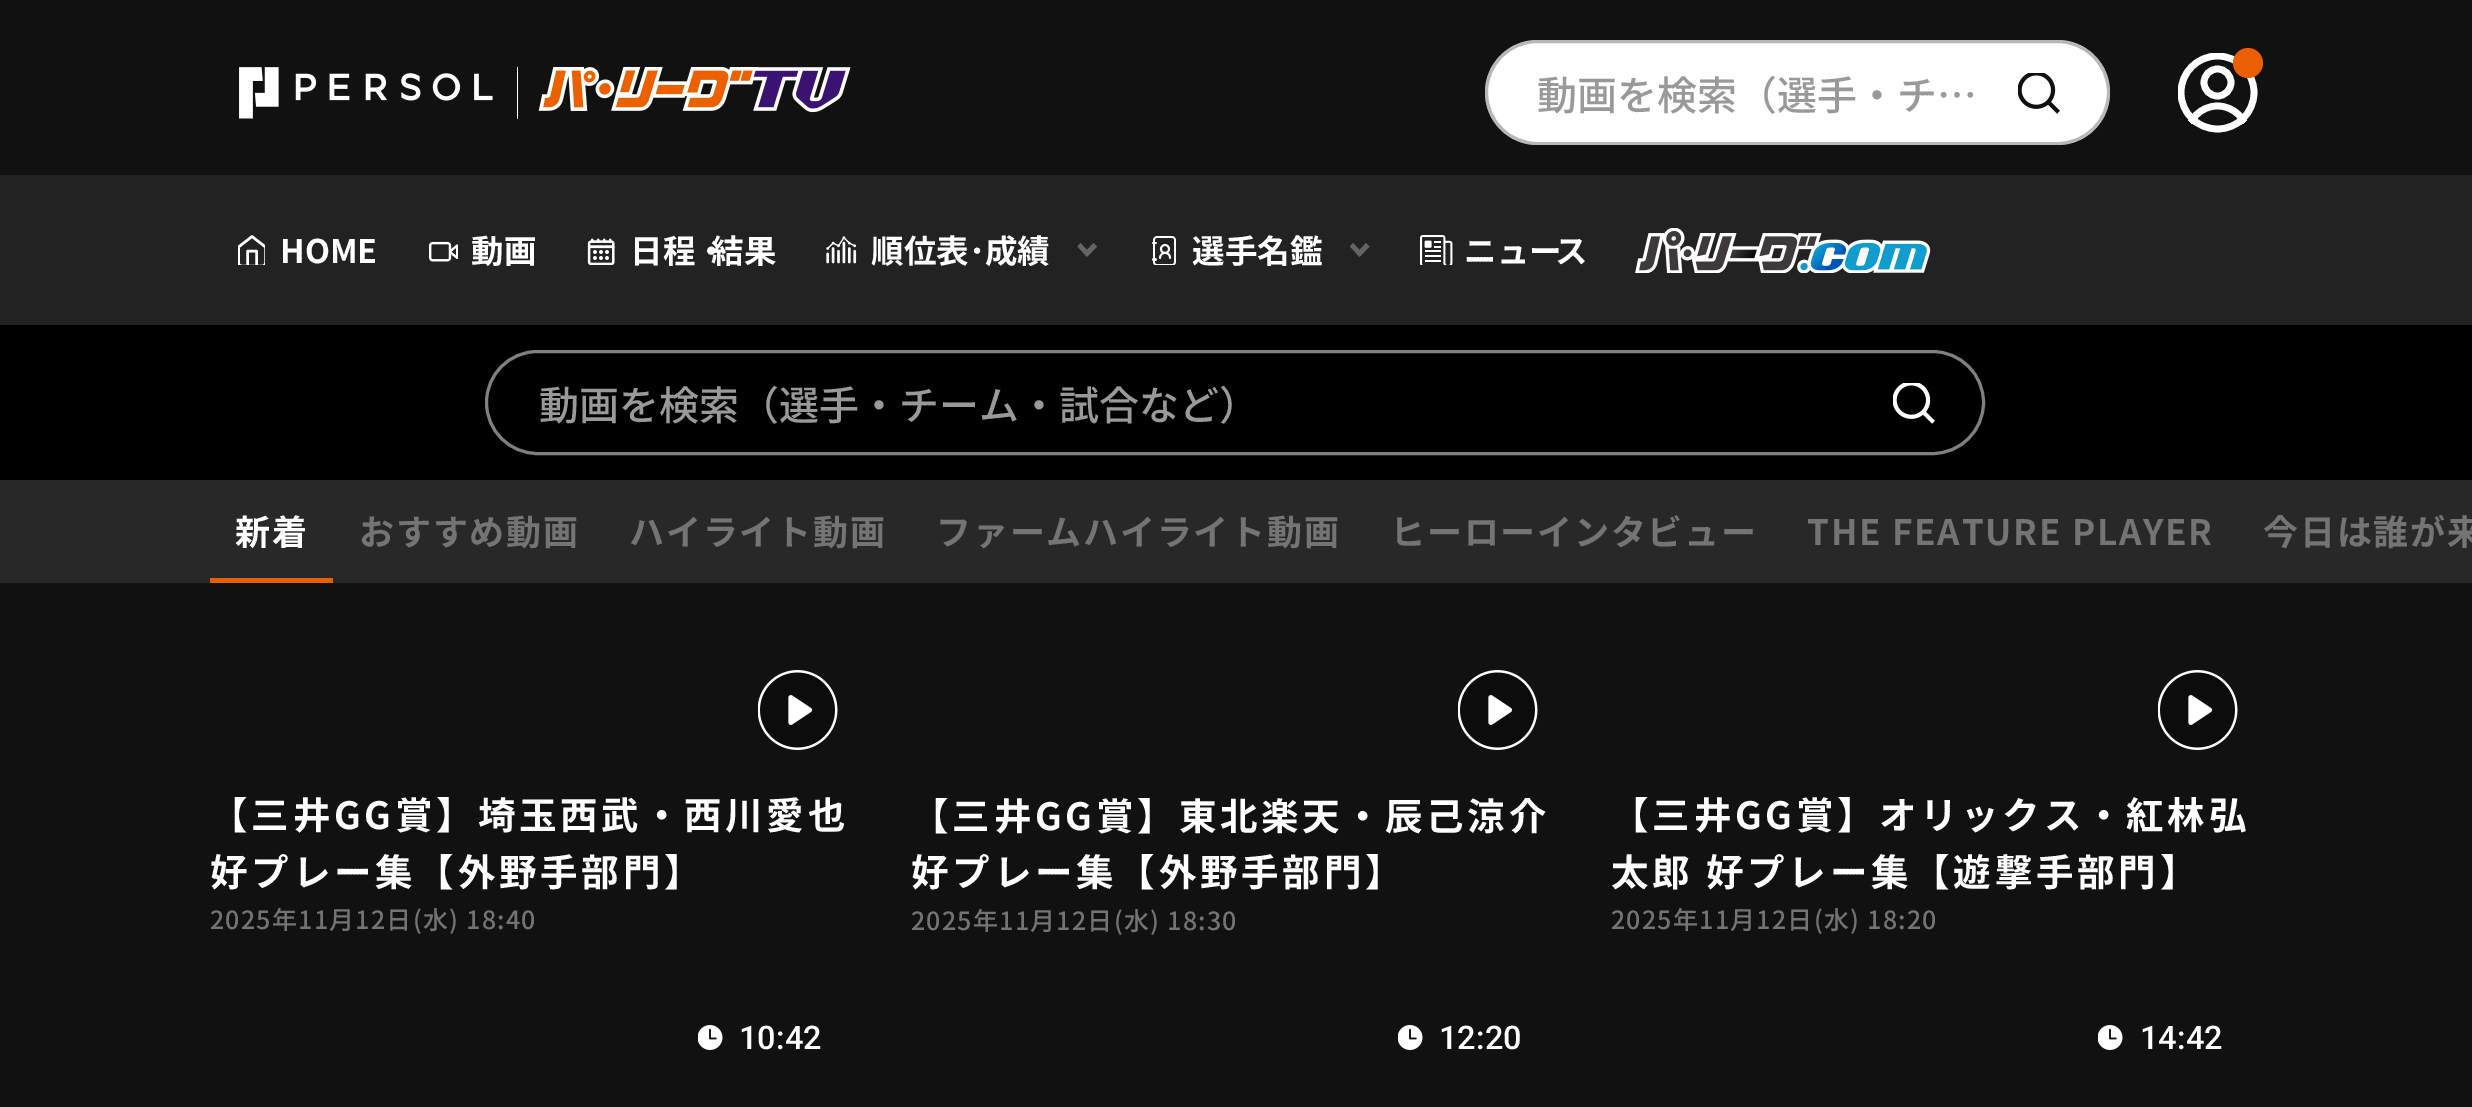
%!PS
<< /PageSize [2472 1107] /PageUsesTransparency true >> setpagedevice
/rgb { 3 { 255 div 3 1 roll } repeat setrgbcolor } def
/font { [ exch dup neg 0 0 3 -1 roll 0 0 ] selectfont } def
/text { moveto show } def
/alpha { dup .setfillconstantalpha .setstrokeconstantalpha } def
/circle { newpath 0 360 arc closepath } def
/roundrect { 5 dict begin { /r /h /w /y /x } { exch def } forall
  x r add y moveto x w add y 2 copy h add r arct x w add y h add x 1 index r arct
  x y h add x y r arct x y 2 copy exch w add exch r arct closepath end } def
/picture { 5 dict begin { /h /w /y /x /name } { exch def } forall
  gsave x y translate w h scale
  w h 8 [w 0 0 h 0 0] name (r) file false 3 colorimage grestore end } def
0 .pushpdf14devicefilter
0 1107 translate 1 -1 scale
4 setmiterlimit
17 17 17 rgb
0 0 2472 1107 rectfill
(img_01.rgb) 239 66 612 53 picture
255 255 255 rgb
1485 40 625 105 52.5 roundrect fill
0.3 alpha
17 17 17 rgb
3 setlinewidth
1486.5 41.5 622 102 51 roundrect stroke
1 alpha
(img_02.rgb) 2018 73 42 41 picture
gsave
2178 53 80 80 rectclip
255 255 255 rgb
6.7 setlinewidth
2217.5 92.5 36.5 circle stroke
grestore
255 255 255 rgb
6.7 setlinewidth
2217.5 82.5 13.5 circle stroke
234 96 0 rgb
2248 63 15 circle fill
gsave
2217.5 52.5 moveto 22 0 40 18 40 40 rcurveto 0 22 -18 40 -40 40 rcurveto -22 0 -40 -18 -40 -40 rcurveto 0 -22 18 -40 40 -40 rcurveto closepath clip newpath
255 255 255 rgb
2217.5 136 30 circle stroke
grestore
34 34 34 rgb
0 175 2472 150 rectfill
gsave
238 235 27 30 rectclip
255 255 255 rgb
2.5 setlinewidth
1 setlinecap
1 setlinejoin
247.5 266 moveto 0 -15 rlineto 9 0 rlineto 0 15 rlineto 238.5 247 moveto 13.5 -10.5 rlineto 13.5 10.5 rlineto 0 16 rlineto 0 1.5 -1.5 3 -3 3 rcurveto -21 0 rlineto -1.5 0 -3 -1.5 -3 -3 rcurveto closepath stroke
grestore
(img_03.rgb) 429 241 29 21 picture
(img_04.rgb) 587 238 28 27 picture
(img_05.rgb) 826 236 31 28 picture
100 100 100 rgb
1087 250 moveto -6.5 -7 rlineto -3 3.5 rlineto 9.5 10.5 rlineto 10 -10.5 rlineto -3.5 -3.5 rlineto closepath fill
(img_06.rgb) 1152 236 24 29 picture
1359.5 250 moveto -6.5 -7 rlineto -3 3.5 rlineto 9.5 10.5 rlineto 10 -10.5 rlineto -3.5 -3.5 rlineto closepath fill
(img_07.rgb) 1420 235 33 30 picture
(img_08.rgb) 1635 228 296 45 picture
0 0 0 rgb
0 325 2472 155 rectfill
128 128 128 rgb
3 setlinewidth
486.5 351.5 1497 102 51 roundrect stroke
(img_09.rgb) 1893 383 42 41 picture
40 40 40 rgb
0 480 2472 103 rectfill
234 96 0 rgb
210 578 123 5 rectfill
(img_10.rgb) 758 670 80 80 picture
(img_10.rgb) 1458 670 80 80 picture
(img_10.rgb) 2158 670 80 80 picture
(img_11.rgb) 698 1025 25 25 picture
(img_11.rgb) 1398 1025 25 25 picture
(img_11.rgb) 2098 1025 25 25 picture
/NotoSansJP-Medium 40 font
153 153 153 rgb
(動画を検索（選手・チ…) 1537 110 text
/NotoSansJP-Bold 32.5 font
255 255 255 rgb
(HOME) 280 263 text
(動画) 471 263 text
(日程・) 630 263 text
(結果) 711 263 text
(順位表･成績) 871 263 text
(選手名鑑) 1192 263 text
(ニュー) 1464 263 text
(ス) 1555 263 text
/NotoSansJP-Medium 40 font
153 153 153 rgb
(動画を検索（選手・チーム・試合など）) 539 420 text
/NotoSansJP-Bold 35 font
255 255 255 rgb
235 545 moveto 1.75 0 (新着) ashow
116 116 116 rgb
359 545 moveto 1.75 0 (おすすめ動画) ashow
629 545 moveto 1.75 0 (ハイライト動画) ashow
936 545 moveto 1.75 0 (ファームハイライト動画) ashow
1390 545 moveto 1.75 0 (ヒーローインタビュー) ashow
1807 545 moveto 1.75 0 (THE FEATURE PLAYER) ashow
2263 545 moveto 1.75 0 (今日は誰が来) ashow
/NotoSansJP-Bold 37.5 font
255 255 255 rgb
210 829 moveto 3.75 0 (【三井GG賞】埼玉西武・西川愛也) ashow
210 886 moveto 3.75 0 (好プレー集【外野手部門】) ashow
/NotoSansJP-Medium 25 font
116 116 116 rgb
210 929 moveto 1.25 0 (2025年11月12日\(水\) 18:40) ashow
/NotoSansJP-Bold 37.5 font
255 255 255 rgb
911 830 moveto 3.75 0 (【三井GG賞】東北楽天・辰己涼介) ashow
911 886 moveto 3.75 0 (好プレー集【外野手部門】) ashow
/NotoSansJP-Medium 25 font
116 116 116 rgb
911 930 moveto 1.25 0 (2025年11月12日\(水\) 18:30) ashow
/NotoSansJP-Bold 37.5 font
255 255 255 rgb
1611 829 moveto 3.75 0 (【三井GG賞】オリックス・紅林弘) ashow
1611 886 moveto 3.75 0 (太郎 好プレー集【遊撃手部門】) ashow
/NotoSansJP-Medium 25 font
116 116 116 rgb
1611 929 moveto 1.25 0 (2025年11月12日\(水\) 18:20) ashow
/Roboto-Medium 32.5 font
255 255 255 rgb
(10:42) 739 1049 text
(12:20) 1439 1049 text
(14:42) 2140 1049 text
.poppdf14devicefilter showpage
